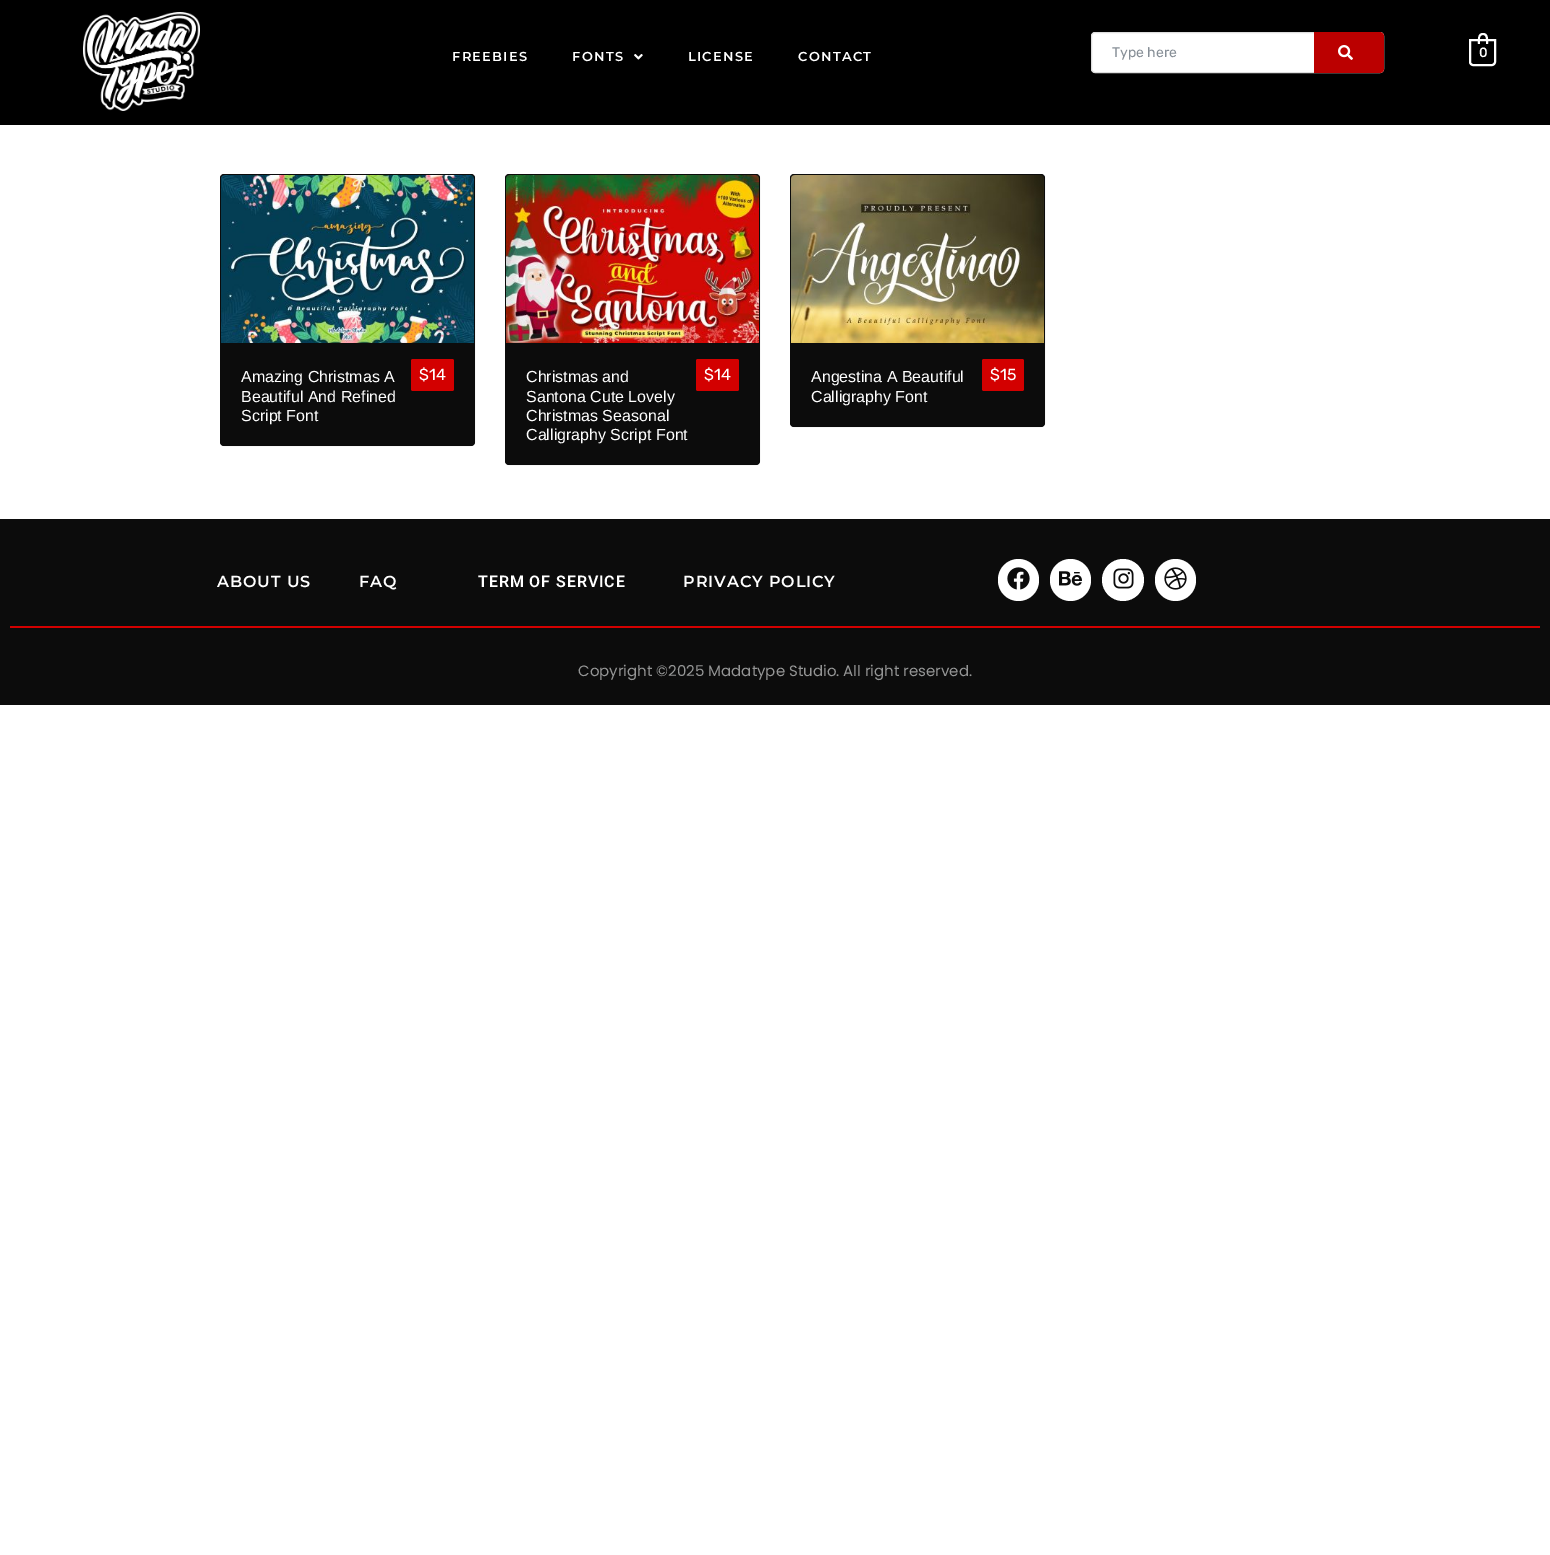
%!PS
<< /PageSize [1550 1555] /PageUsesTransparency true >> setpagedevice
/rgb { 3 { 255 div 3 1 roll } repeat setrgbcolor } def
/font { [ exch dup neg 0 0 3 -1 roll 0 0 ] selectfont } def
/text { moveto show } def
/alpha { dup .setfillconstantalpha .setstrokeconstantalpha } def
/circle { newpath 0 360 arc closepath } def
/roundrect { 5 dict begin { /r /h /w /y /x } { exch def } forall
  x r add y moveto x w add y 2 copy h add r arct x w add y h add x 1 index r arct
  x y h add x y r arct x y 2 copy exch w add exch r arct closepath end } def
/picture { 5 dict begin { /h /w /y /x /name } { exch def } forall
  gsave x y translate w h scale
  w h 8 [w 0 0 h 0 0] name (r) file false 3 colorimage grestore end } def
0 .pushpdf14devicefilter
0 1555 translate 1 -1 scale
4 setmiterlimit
255 255 255 rgb
0 0 1550 1555 rectfill
0 0 0 rgb
0 0 1550 125 rectfill
(img_01.rgb) 83 12 117 99 picture
(img_02.rgb) 634 54 9 6 picture
255 255 255 rgb
1091.5 32.5 292 40 3.5 roundrect gsave fill grestore
221 221 221 rgb
stroke
187 0 0 rgb
1314 32 moveto 66 0 rlineto 2 0 4 2 4 4 rcurveto 0 33 rlineto 0 2 -2 4 -4 4 rcurveto -66 0 rlineto closepath fill
(img_03.rgb) 1338 45 15 15 picture
255 255 255 rgb
2 setlinewidth
1470 40 moveto 25 0 rlineto 0 22 rlineto 0 1.5 -1.5 3 -3 3 rcurveto -19 0 rlineto -1.5 0 -3 -1.5 -3 -3 rcurveto closepath stroke
1483 33 moveto 6 0 5 7 5 11 rcurveto -10 0 rlineto 0 -4 -1 -11 5 -11 rcurveto closepath 1483 35 moveto 4 0 3 6.5 3 9 rcurveto -6 0 rlineto 0 -2.5 -1.5 -9 3 -9 rcurveto closepath eofill
12 12 12 rgb
220 174 255 272 4 roundrect fill
0.12 alpha
0 0 0 rgb
1 setlinewidth
220.5 174.5 254 271 3.5 roundrect stroke
1 alpha
(img_04.rgb) 221 175 253 168 picture
211 0 0 rgb
411 359 43 32 2 roundrect fill
12 12 12 rgb
505 174 255 291 4 roundrect fill
0.12 alpha
0 0 0 rgb
505.5 174.5 254 290 3.5 roundrect stroke
1 alpha
(img_05.rgb) 506 175 253 168 picture
211 0 0 rgb
696 359 43 32 2 roundrect fill
12 12 12 rgb
790 174 255 253 4 roundrect fill
0.12 alpha
0 0 0 rgb
790.5 174.5 254 252 3.5 roundrect stroke
1 alpha
(img_06.rgb) 791 175 253 168 picture
211 0 0 rgb
982 359 42 32 2 roundrect fill
12 12 12 rgb
0 519 1550 186 rectfill
255 255 255 rgb
998 559 41 42 20.5 roundrect fill
(img_07.rgb) 1007 567 23 23 picture
1050 559 41 42 20.5 roundrect fill
(img_08.rgb) 1059 571 23 15 picture
1123 580 21 circle fill
(img_09.rgb) 1113 568 21 21 picture
1155 559 41 42 20.5 roundrect fill
(img_10.rgb) 1164 567 23 23 picture
211 0 0 rgb
10 626 1530 2 rectfill
/Montserrat-Thin 13 font
255 255 255 rgb
452 61 moveto 1.25 0 (FREEBIES) ashow
572 61 moveto 1.25 0 (FONTS) ashow
688 61 moveto 1.25 0 (LICENSE) ashow
798 61 moveto 1.25 0 (CONTACT) ashow
/Rubik-Light 14 font
134 142 150 rgb
(Type here) 1112 57 text
/Rubik-Bold 13 font
255 255 255 rgb
(0) 1479 57 text
/Arimo-Regular 16 font
(Amazing Christmas A) 241 382 text
(Beautiful And Refined) 241 402 text
(Script Font) 241 421 text
/Rubik-Light 16 font
($14) 419 380 text
/Arimo-Regular 16 font
(Christmas and) 526 382 text
(Santona Cute Lovely) 526 402 text
(Christmas Seasonal) 526 421 text
(Calligraphy Script Font) 526 440 text
/Rubik-Light 16 font
($14) 704 380 text
/Arimo-Regular 16 font
(Angestina A Beautiful) 811 382 text
(Calligraphy Font) 811 402 text
/Rubik-Light 16 font
($15) 990 380 text
/Montserrat-Thin 16 font
217 587 moveto 0.9 0 (ABOUT US) ashow
359 587 moveto 0.9 0 (FAQ) ashow
/Roboto-SemiBold 16 font
478 587 moveto 0.9 0 (TERM OF SERVICE) ashow
/Montserrat-Thin 16 font
683 587 moveto 0.9 0 (PRIVACY POLICY) ashow
/Poppins-Regular 15 font
148 149 149 rgb
(Copyright ©2025 Madatype Studio. All right reserved.) 578 676 text
.poppdf14devicefilter showpage
